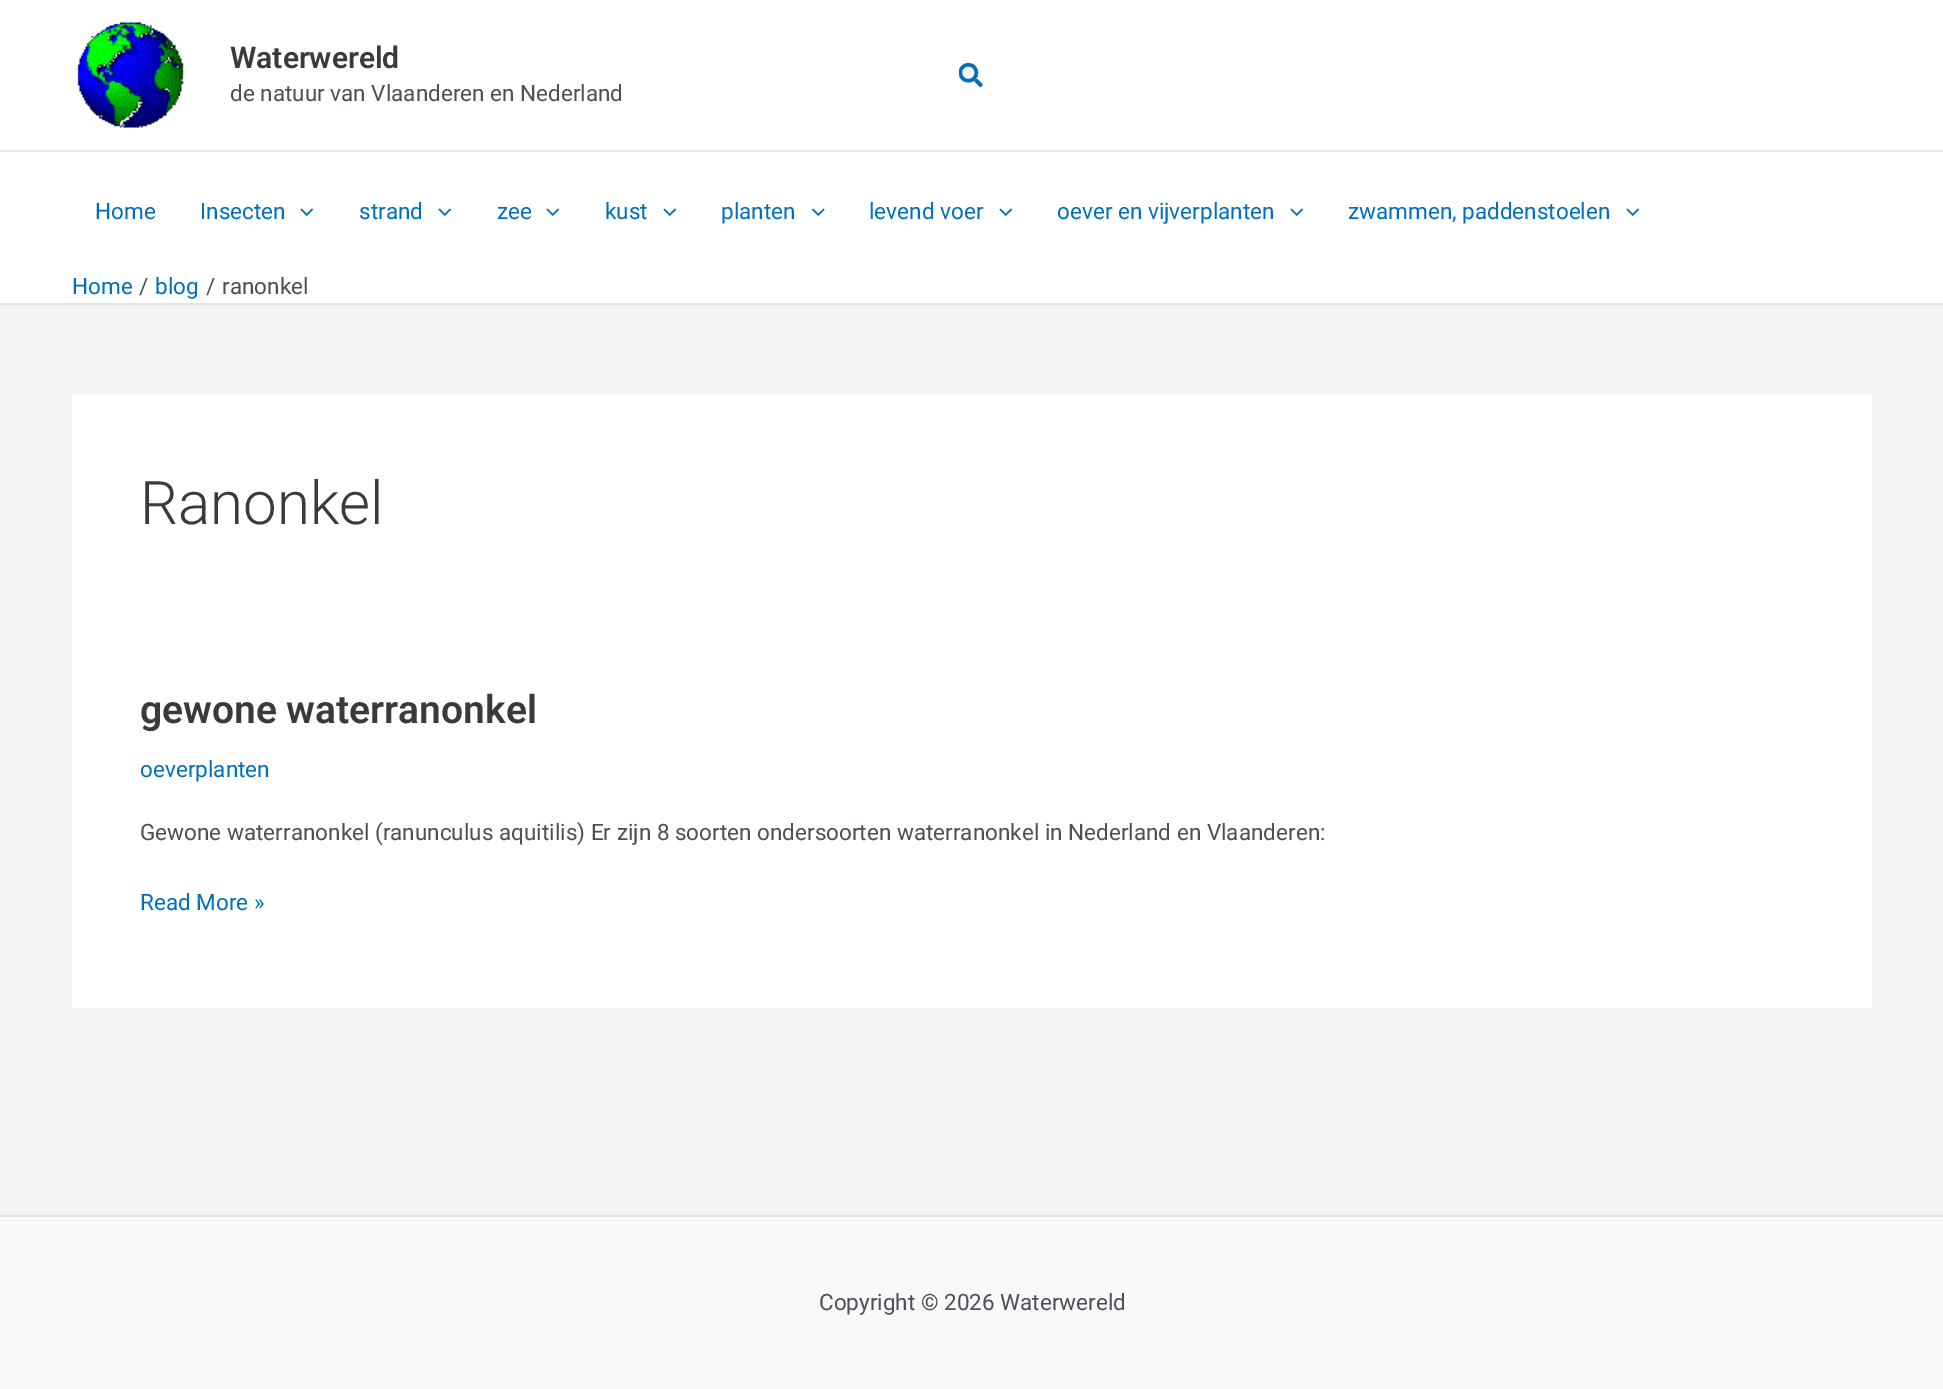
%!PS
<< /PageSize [1943 1389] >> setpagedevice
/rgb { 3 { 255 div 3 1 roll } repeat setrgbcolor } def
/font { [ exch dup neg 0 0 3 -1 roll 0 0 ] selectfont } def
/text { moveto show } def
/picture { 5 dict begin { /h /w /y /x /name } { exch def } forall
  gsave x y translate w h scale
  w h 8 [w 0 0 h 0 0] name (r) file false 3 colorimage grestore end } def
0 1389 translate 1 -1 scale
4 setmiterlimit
245 245 245 rgb
0 0 1943 1389 rectfill
255 255 255 rgb
0 0 1943 150 rectfill
229 229 229 rgb
0 150 1943 2 rectfill
(img_01.rgb) 77 22 107 106 picture
(img_02.rgb) 959 62 24 26 picture
255 255 255 rgb
0 152 1943 151 rectfill
229 229 229 rgb
0 303 1943 2 rectfill
(img_03.rgb) 300 208 14 8 picture
(img_03.rgb) 438 208 14 8 picture
(img_03.rgb) 546 208 14 8 picture
(img_03.rgb) 663 208 14 8 picture
(img_04.rgb) 812 208 13 8 picture
(img_03.rgb) 999 208 14 8 picture
(img_03.rgb) 1290 208 14 8 picture
(img_03.rgb) 1626 208 14 8 picture
255 255 255 rgb
72 395 1800 613 rectfill
249 249 249 rgb
0 1217 1943 172 rectfill
229 229 229 rgb
0 1215 1943 2 rectfill
/Roboto-SemiBold 30 font
58 58 58 rgb
(Waterwereld) 230 68 text
/Roboto-Regular 22.5 font
75 79 88 rgb
(de natuur van Vlaanderen en Nederland) 230 101 text
1 112 185 rgb
(Home) 95 219 text
(Insecten) 200 219 text
(strand) 359 219 text
(zee) 497 219 text
(kust) 605 219 text
(planten) 721 219 text
(levend voer) 869 219 text
(oever en vijverplanten) 1057 219 text
(zwammen, paddenstoelen) 1348 219 text
(Home) 72 294 text
75 79 88 rgb
(/) 139 294 text
1 112 185 rgb
(blog) 155 294 text
75 79 88 rgb
(/) 206 294 text
(ranonkel) 222 294 text
/Roboto-Light 60 font
58 58 58 rgb
(Ranonkel) 140 524 text
/Roboto-SemiBold 39 font
(gewone waterranonkel) 140 723 text
/Roboto-Regular 22.5 font
1 112 185 rgb
(oeverplanten) 140 777 text
75 79 88 rgb
(Gewone waterranonkel \(ranunculus aquitilis\) Er zijn 8 soorten ondersoorten waterranonkel in Nederland en Vlaanderen:) 140 840 text
1 112 185 rgb
(Read More ») 140 910 text
75 79 88 rgb
(Copyright © 2026 Waterwereld) 819 1310 text
showpage
